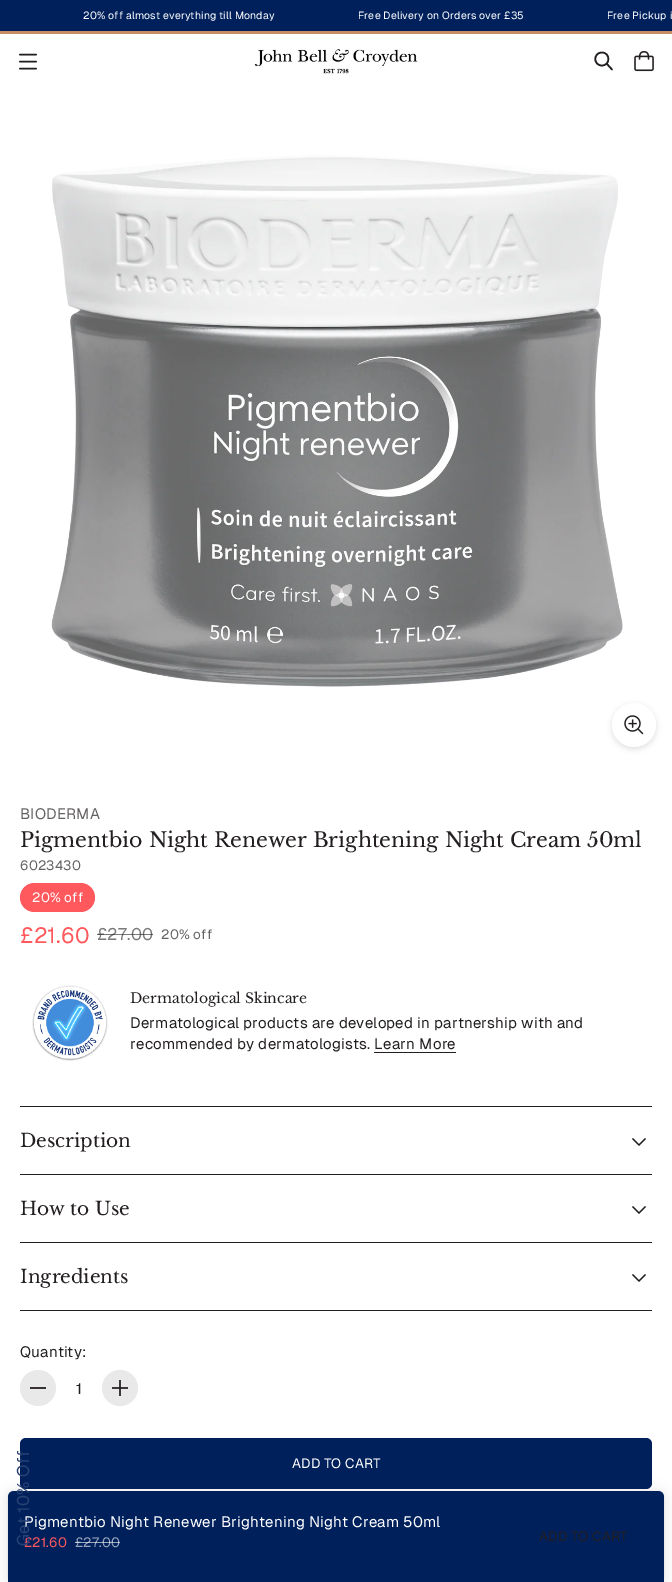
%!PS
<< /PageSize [672 1582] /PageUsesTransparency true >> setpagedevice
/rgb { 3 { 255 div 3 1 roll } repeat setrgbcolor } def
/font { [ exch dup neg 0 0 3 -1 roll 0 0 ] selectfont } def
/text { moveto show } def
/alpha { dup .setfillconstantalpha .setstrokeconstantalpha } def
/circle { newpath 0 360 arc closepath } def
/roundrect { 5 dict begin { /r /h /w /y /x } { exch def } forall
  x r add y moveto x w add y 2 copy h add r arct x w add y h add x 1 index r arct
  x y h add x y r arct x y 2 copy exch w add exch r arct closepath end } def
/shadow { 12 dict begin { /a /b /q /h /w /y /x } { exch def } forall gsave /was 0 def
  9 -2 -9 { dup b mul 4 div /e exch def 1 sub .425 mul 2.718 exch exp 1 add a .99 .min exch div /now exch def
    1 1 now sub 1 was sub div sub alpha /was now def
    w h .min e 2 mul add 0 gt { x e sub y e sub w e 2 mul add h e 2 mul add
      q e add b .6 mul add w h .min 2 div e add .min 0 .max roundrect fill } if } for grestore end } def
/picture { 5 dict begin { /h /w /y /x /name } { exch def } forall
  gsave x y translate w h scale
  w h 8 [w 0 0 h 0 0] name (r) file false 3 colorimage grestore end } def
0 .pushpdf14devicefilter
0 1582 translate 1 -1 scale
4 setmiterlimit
255 255 255 rgb
0 0 672 1582 rectfill
0 32 92 rgb
0 0 672 31 rectfill
199 140 100 rgb
0 31 672 3 rectfill
35 31 32 rgb
1.6 setlinewidth
1 setlinecap
1 setlinejoin
20 61.5 moveto 16 0 rlineto 20 68.5 moveto 16 0 rlineto 20 54.5 moveto 16 0 rlineto stroke
(img_01.rgb) 254 49 164 25 picture
602 65.5 moveto 8.5 0 8.5 -13 0 -13 rcurveto -9 0 -9 13 0 13 rcurveto closepath 607 64 moveto 5 5.5 rlineto stroke
(img_02.rgb) 634 51 20 21 picture
(img_03.rgb) 51 155 572 532 picture
0 0 0 rgb
612 705 44 44 22 3 0.12 shadow
255 255 255 rgb
634 725 22 circle fill
(img_04.rgb) 624 715 20 20 picture
255 88 93 rgb
20 883 75 29 14.5 roundrect fill
(img_05.rgb) 32 985 76 76 picture
35 31 32 rgb
374 1052 82 1 rectfill
20 1106 632 1 rectfill
20 1174 632 1 rectfill
1.4 setlinewidth
0 setlinecap
0 setlinejoin
632.5 1138.5 moveto 6.5 6.5 rlineto 6.5 -6.5 rlineto stroke
20 1242 632 1 rectfill
632.5 1206.5 moveto 6.5 6.5 rlineto 6.5 -6.5 rlineto stroke
20 1310 632 1 rectfill
632.5 1274.5 moveto 6.5 6.5 rlineto 6.5 -6.5 rlineto stroke
233 233 233 rgb
38 1388 18 circle fill
55 51 52 rgb
30 1387 16 2 rectfill
233 233 233 rgb
120 1388 18 circle fill
(img_06.rgb) 112 1380 16 16 picture
0 32 92 rgb
20 1438 632 51 6 roundrect fill
0 0 0 rgb
8 1493 656 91 6 7 0.12 shadow
8 1491 656 91 6 0.5 0.1 shadow
0 32 92 rgb
14 1491 moveto 644 0 rlineto 3.5 0 6 2.5 6 6 rcurveto 0 85 rlineto -656 0 rlineto 0 -85 rlineto 0 -3.5 2.5 -6 6 -6 rcurveto closepath fill
/Geist-Regular 10.5 font
255 255 255 rgb
83 19 moveto 0.15 0 (20% off almost everything till Monday) ashow
358 19 moveto 0.15 0 (Free Delivery on Orders over £35) ashow
607 19 moveto 0.15 0 (Free Pickup i) ashow
/Geist-Regular 15.05 font
101 98 99 rgb
20 819 moveto 0.2 0 (BIODERMA) ashow
/LibreBaskerville-Regular 20.5 font
35 31 32 rgb
(Pigmentbio Night Renewer Brightening Night Cream 50ml) 20 847 text
/Geist-Regular 13.5 font
101 98 99 rgb
20 870 moveto 0.2 0 (6023430) ashow
255 255 255 rgb
32 902 moveto 0.2 0 (20% off) ashow
/Geist-Regular 22 font
255 88 93 rgb
20 943 moveto 0.2 0 (£21.60) ashow
/Geist-Regular 16.75 font
123 121 121 rgb
97 940 moveto 0.2 0 (£27.00) ashow
0.6 alpha
35 31 32 rgb
97 934 56 1 rectfill
/Geist-Regular 13.5 font
1 alpha
101 98 99 rgb
161 939 moveto 0.2 0 (20% off) ashow
/LibreBaskerville-Regular 14 font
35 31 32 rgb
(Dermatological Skincare) 130 1003 text
/Geist-Regular 15.05 font
130 1028 moveto 0.2 0 (Dermatological products are developed in partnership with and) ashow
130 1049 moveto 0.2 0 (recommended by dermatologists. Learn More) ashow
/LibreBaskerville-Regular 18.5 font
(Description) 20 1147 text
(How to Use) 20 1215 text
(Ingredients) 20 1283 text
/Geist-Regular 15.05 font
20 1357 moveto 0.2 0 (Quantity:) ashow
(1) 76 1394 text
/Geist-Regular 13.5 font
255 255 255 rgb
292 1468 moveto 0.15 0 (ADD TO CART) ashow
/Geist-Regular 15.05 font
24 1527 moveto 0.2 0 (Pigmentbio Night Renewer Brightening Night Cream 50ml) ashow
/Geist-Regular 13.5 font
255 88 93 rgb
24 1547 moveto 0.2 0 (£21.60) ashow
153 166 190 rgb
75 1547 moveto 0.2 0 (£27.00) ashow
0.6 alpha
255 255 255 rgb
75 1542 45 1 rectfill
1 alpha
35 31 32 rgb
539 1541 moveto 0.15 0 (ADD TO CART) ashow
/Geist-Regular 16.75 font
41 66 116 rgb
gsave 29 1546 translate -90 rotate 0 0 moveto 0.25 0 (Get 10% Off) ashow grestore
.poppdf14devicefilter showpage
